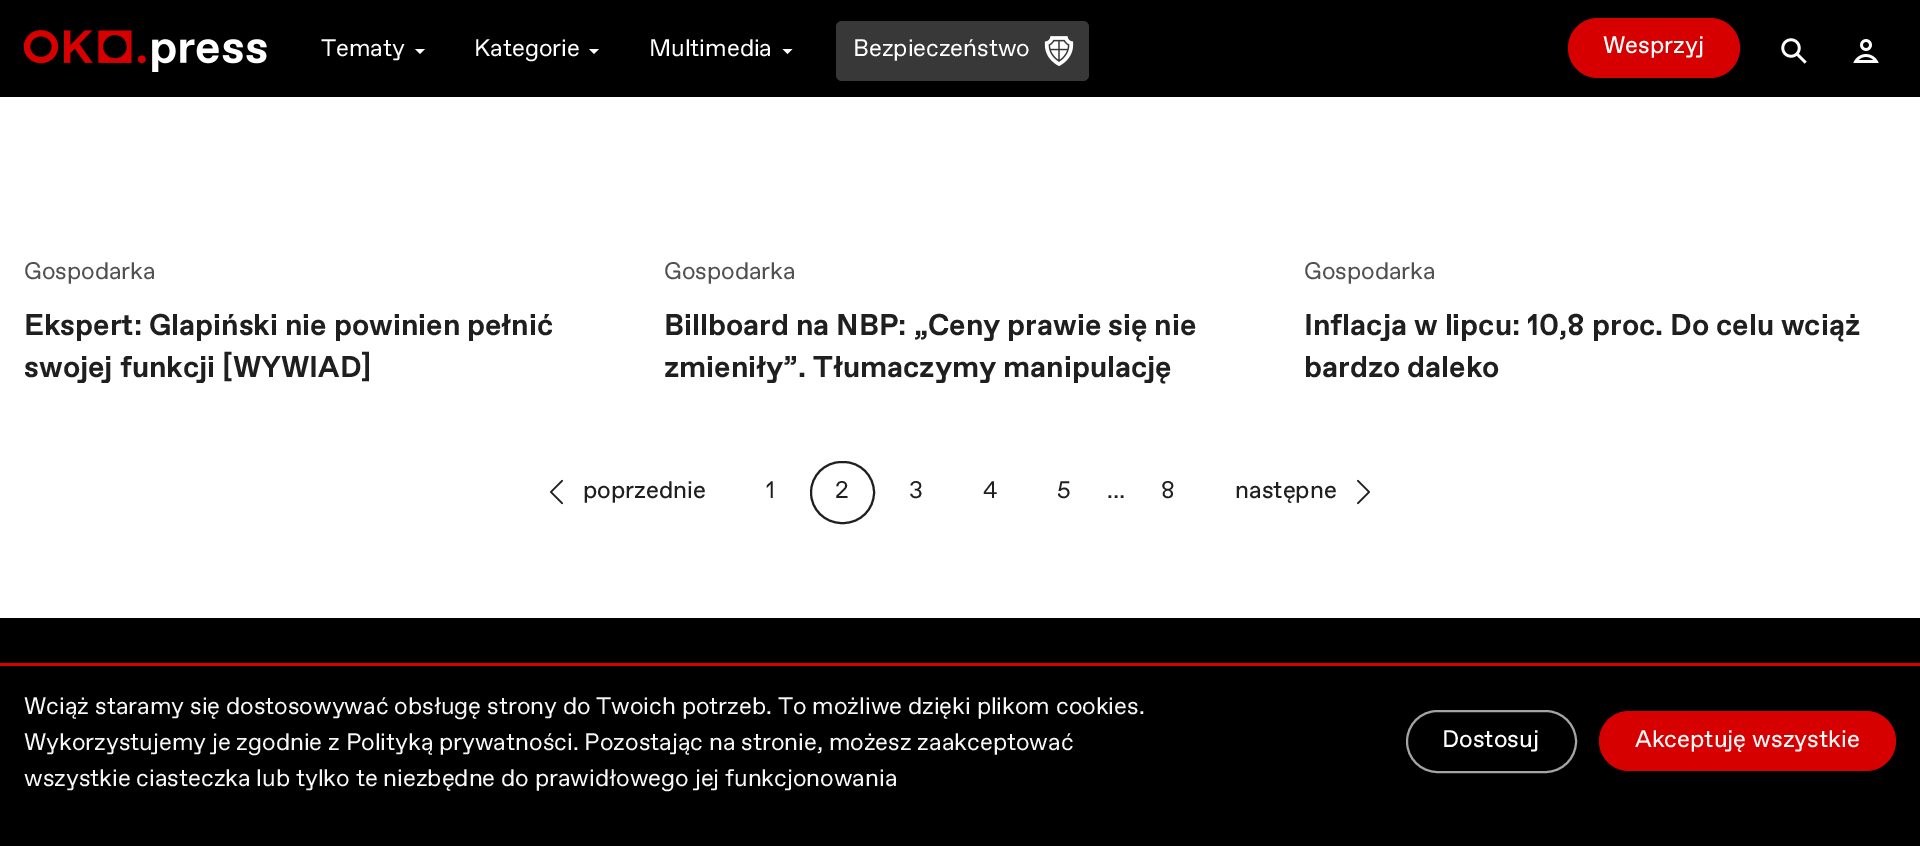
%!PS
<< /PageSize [1920 846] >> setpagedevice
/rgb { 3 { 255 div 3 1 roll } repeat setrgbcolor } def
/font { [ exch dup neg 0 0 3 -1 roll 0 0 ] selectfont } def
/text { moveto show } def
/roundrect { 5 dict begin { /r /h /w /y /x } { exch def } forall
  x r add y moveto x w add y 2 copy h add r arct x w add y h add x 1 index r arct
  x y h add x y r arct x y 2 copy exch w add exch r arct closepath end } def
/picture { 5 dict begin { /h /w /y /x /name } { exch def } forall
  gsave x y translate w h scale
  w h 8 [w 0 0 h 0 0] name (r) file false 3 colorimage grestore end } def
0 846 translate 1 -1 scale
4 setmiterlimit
255 255 255 rgb
0 0 1920 846 rectfill
0 0 0 rgb
0 0 1920 97 rectfill
(img_01.rgb) 24 30 243 42 picture
255 255 255 rgb
415 49 moveto 5 5 rlineto 5 -5 rlineto closepath fill
589 49 moveto 5 5 rlineto 5 -5 rlineto closepath fill
782.5 49 moveto 5 5 rlineto 5 -5 rlineto closepath fill
56 56 56 rgb
836 21 253 60 6 roundrect fill
(img_02.rgb) 1044 36 30 30 picture
214 0 0 rgb
1568 18 172 60 30 roundrect fill
(img_03.rgb) 1781 38 26 26 picture
(img_04.rgb) 1853 39 26 24 picture
(img_05.rgb) 550 479 13 26 picture
31 31 31 rgb
2 setlinewidth
811 462 63 61 30.5 roundrect stroke
(img_06.rgb) 1357 479 13 26 picture
0 0 0 rgb
0 618 1920 45 rectfill
0 666 1920 180 rectfill
214 0 0 rgb
0 663 1920 3 rectfill
164 164 164 rgb
1407 711 169 61 30.5 roundrect stroke
214 0 0 rgb
1599 711 297 60 30 roundrect fill
/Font-Light 24 font
255 255 255 rgb
(Tematy) 321 56 text
(Kategorie) 474 56 text
(Multimedia) 649 56 text
(Bezpieczeństwo) 853 56 text
/Font-Regular 24 font
(Wesprzyj) 1603 53 text
/Font-Light 24 font
81 81 81 rgb
(Gospodarka) 24 279 text
/Font-Bold 30 font
31 31 31 rgb
(Ekspert: Glapiński nie powinien pełnić) 24 335 text
(swojej funkcji [WYWIAD]) 24 377 text
/Font-Light 24 font
81 81 81 rgb
(Gospodarka) 664 279 text
/Font-Bold 30 font
31 31 31 rgb
(Billboard na NBP: „Ceny prawie się nie) 664 335 text
(zmieniły”. Tłumaczymy manipulację) 664 377 text
/Font-Light 24 font
81 81 81 rgb
(Gospodarka) 1304 279 text
/Font-Bold 30 font
31 31 31 rgb
(Inflacja w lipcu: 10,8 proc. Do celu wciąż) 1304 335 text
(bardzo daleko) 1304 377 text
/Font-Regular 24 font
(poprzednie) 583 498 text
/Font-Light 24 font
(1) 766 498 text
(2) 835 498 text
(3) 909 498 text
(4) 983 498 text
(5) 1057 498 text
(…) 1107 498 text
(8) 1161 498 text
/Font-Regular 24 font
(następne) 1235 498 text
/Font-Light 24 font
247 247 247 rgb
(Wciąż staramy się dostosowywać obsługę strony do Twoich potrzeb. To możliwe dzięki plikom cookies.) 24 714 text
(Wykorzystujemy je zgodnie z Polityką prywatności. Pozostając na stronie, możesz zaakceptować) 24 750 text
(wszystkie ciasteczka lub tylko te niezbędne do prawidłowego jej funkcjonowania) 24 786 text
/Font-Regular 24 font
255 255 255 rgb
(Dostosuj) 1442 747 text
247 247 247 rgb
(Akceptuję wszystkie) 1635 747 text
showpage
